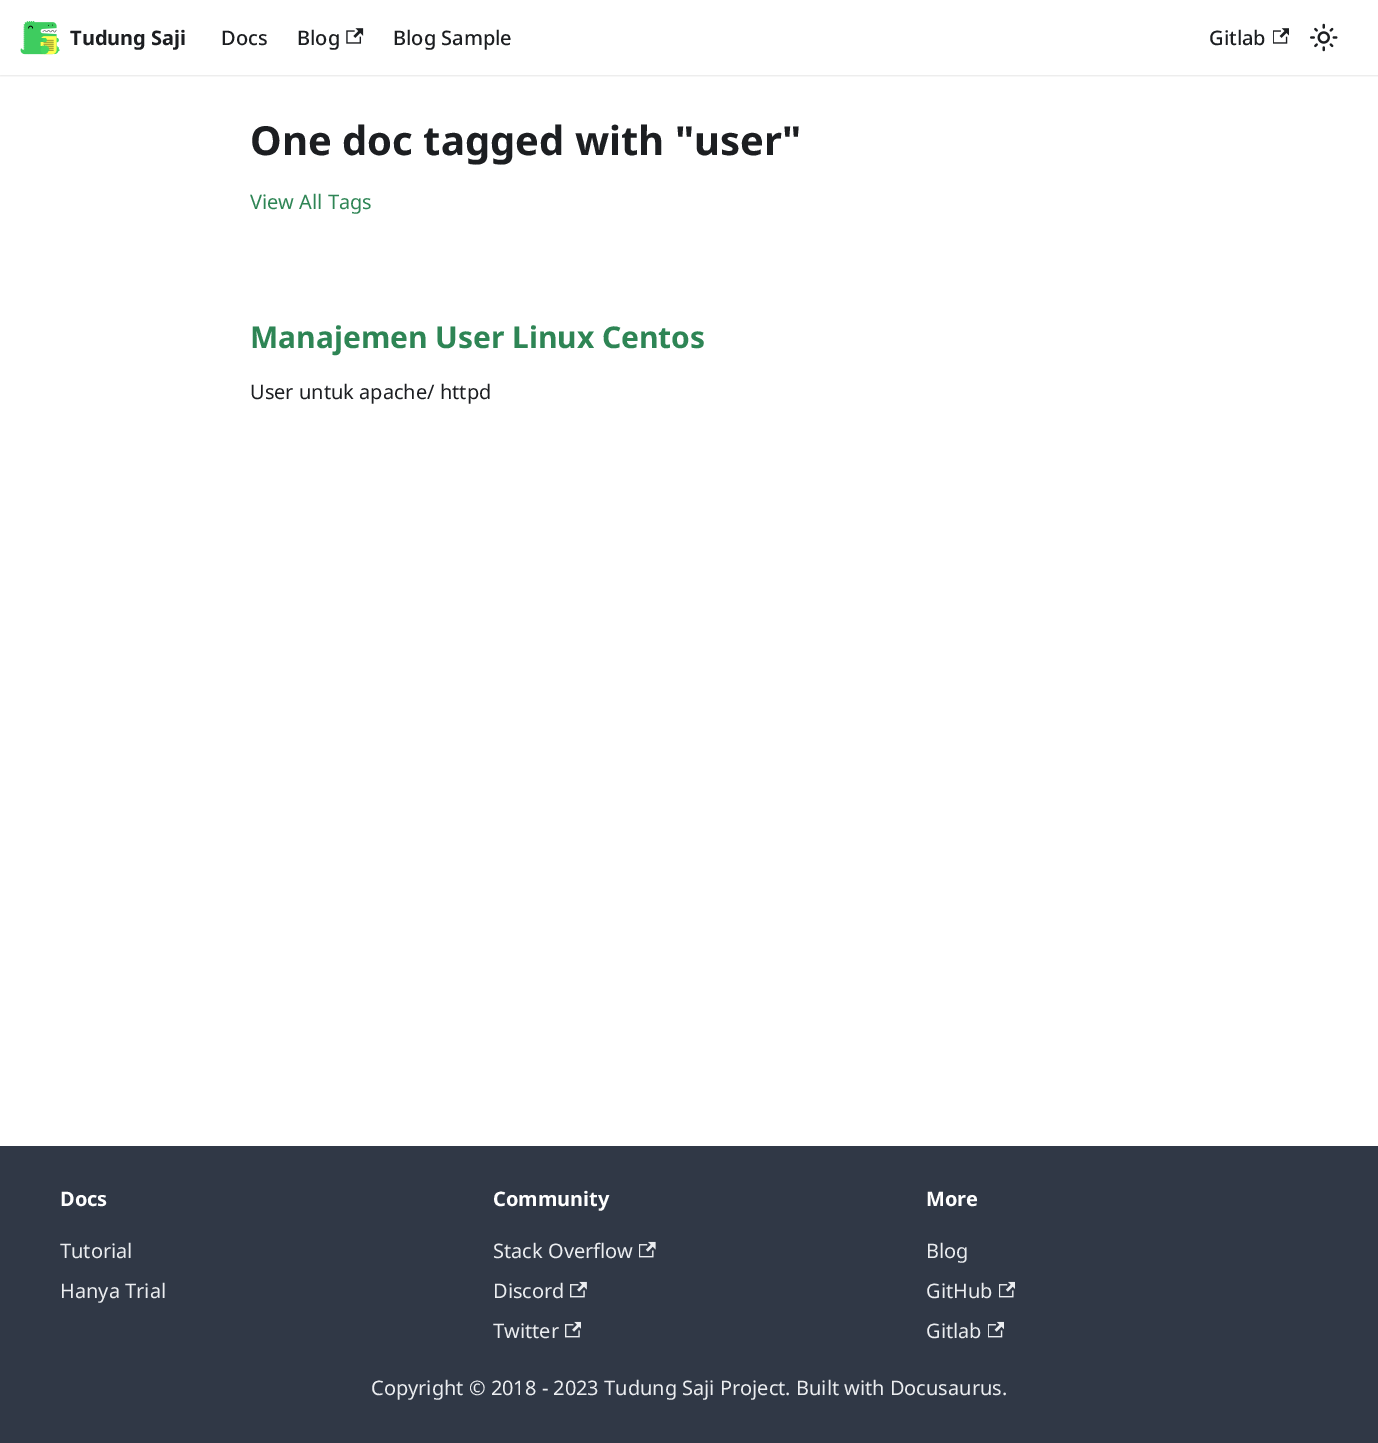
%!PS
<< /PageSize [1378 1443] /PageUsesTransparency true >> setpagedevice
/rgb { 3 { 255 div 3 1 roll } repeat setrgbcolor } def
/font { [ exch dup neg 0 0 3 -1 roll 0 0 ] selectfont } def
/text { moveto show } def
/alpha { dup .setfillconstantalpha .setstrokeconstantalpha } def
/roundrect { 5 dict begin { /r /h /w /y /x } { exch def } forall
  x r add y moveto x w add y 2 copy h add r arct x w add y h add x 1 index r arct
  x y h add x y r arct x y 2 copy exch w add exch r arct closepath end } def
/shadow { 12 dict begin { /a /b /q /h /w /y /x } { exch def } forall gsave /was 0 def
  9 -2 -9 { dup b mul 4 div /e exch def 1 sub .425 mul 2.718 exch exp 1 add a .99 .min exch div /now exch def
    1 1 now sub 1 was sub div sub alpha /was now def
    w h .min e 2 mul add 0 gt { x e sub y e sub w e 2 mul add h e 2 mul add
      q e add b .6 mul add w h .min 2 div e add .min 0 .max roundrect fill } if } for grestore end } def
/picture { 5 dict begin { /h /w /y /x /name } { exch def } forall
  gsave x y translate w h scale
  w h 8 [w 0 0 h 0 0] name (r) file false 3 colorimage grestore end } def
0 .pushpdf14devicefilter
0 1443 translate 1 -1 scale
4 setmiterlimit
255 255 255 rgb
0 0 1378 1443 rectfill
gsave
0 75 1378 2 rectclip
0 0 0 rgb
0 1 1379 75 0 1 0.1 shadow
grestore
(img_01.rgb) 20 21 40 34 picture
(img_02.rgb) 346 28 18 16 picture
(img_03.rgb) 1273 28 16 16 picture
(img_04.rgb) 1310 23 28 29 picture
48 56 70 rgb
0 1146 1378 297 rectfill
(img_05.rgb) 639 1241 17 17 picture
(img_06.rgb) 570 1281 17 17 picture
(img_07.rgb) 565 1321 16 17 picture
(img_08.rgb) 999 1281 16 17 picture
(img_09.rgb) 988 1321 16 17 picture
/NotoSans-Bold 20 font
28 30 33 rgb
(Tudung Saji) 70 45 text
/NotoSans-Medium 20 font
(Docs) 221 45 text
(Blog) 297 45 text
(Blog Sample) 393 45 text
(Gitlab) 1209 45 text
/NotoSans-Bold 40 font
(One doc tagged with "user") 250 155 text
/NotoSans-Regular 20 font
46 133 85 rgb
(View All Tags) 250 209 text
/NotoSans-Bold 30 font
(Manajemen User Linux Centos) 250 348 text
/NotoSans-Regular 20 font
28 30 33 rgb
(User untuk apache/ httpd) 250 399 text
/NotoSans-Bold 20 font
255 255 255 rgb
(Docs) 60 1206 text
/NotoSans-Regular 20 font
235 237 240 rgb
(Tutorial) 60 1258 text
(Hanya Trial) 60 1298 text
/NotoSans-Bold 20 font
255 255 255 rgb
(Community) 493 1206 text
/NotoSans-Regular 20 font
235 237 240 rgb
(Stack Overflow) 493 1258 text
(Discord) 493 1298 text
(Twitter) 493 1338 text
/NotoSans-Bold 20 font
255 255 255 rgb
(More) 926 1206 text
/NotoSans-Regular 20 font
235 237 240 rgb
(Blog) 926 1258 text
(GitHub) 926 1298 text
(Gitlab) 926 1338 text
(Copyright © 2018 - 2023 Tudung Saji Project. Built with Docusaurus.) 371 1395 text
.poppdf14devicefilter showpage
